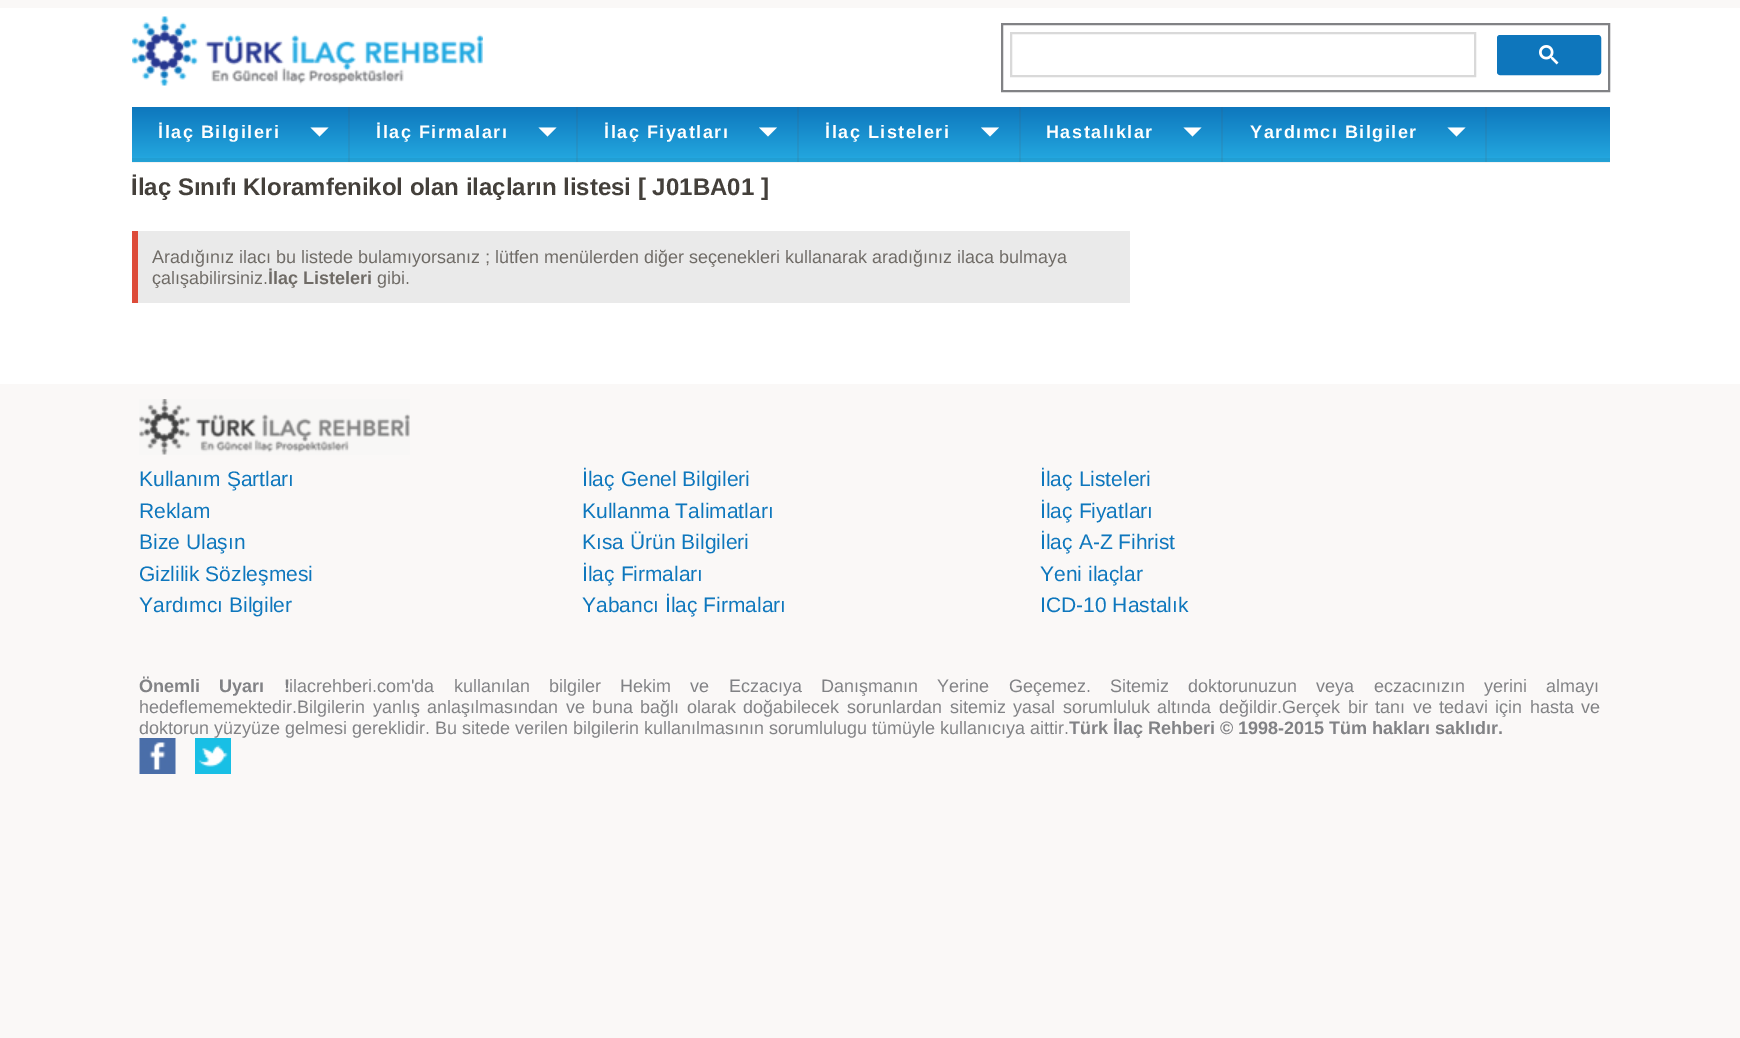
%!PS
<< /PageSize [1740 1038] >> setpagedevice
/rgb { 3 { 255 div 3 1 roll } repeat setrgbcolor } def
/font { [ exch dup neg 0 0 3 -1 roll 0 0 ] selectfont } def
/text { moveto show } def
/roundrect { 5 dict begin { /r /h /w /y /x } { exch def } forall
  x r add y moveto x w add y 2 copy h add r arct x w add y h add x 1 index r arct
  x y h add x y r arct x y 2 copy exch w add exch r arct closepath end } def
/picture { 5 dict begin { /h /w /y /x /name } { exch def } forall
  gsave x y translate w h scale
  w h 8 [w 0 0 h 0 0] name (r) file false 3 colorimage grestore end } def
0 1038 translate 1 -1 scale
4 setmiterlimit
250 248 247 rgb
0 0 1740 1038 rectfill
255 255 255 rgb
0 8 1740 376 rectfill
242 242 242 rgb
132 162 1478 1 rectfill
(img_01.rgb) 132 16 351 70 picture
129 130 133 rgb
2 setlinewidth
1002 24 607 67 rectstroke
217 217 217 rgb
1011 33 464 43 rectstroke
14 118 188 rgb
1498 36 102 38 2 roundrect gsave fill grestore
stroke
(img_02.rgb) 1539 45 20 20 picture
gsave 132 107 moveto 1478 0 rlineto 0 51 rlineto -1478 0 rlineto closepath clip newpath
<< /ShadingType 2 /ColorSpace /DeviceRGB /Coords [871 106 871 162] /Extend [true true] /Function << /FunctionType 2 /Domain [0 1] /C0 [0.055 0.463 0.737] /C1 [0.145 0.667 0.882] /N 1 >> >> shfill grestore
gsave 1485 107 moveto 2 0 rlineto 0 55 rlineto -2 0 rlineto closepath clip newpath
<< /ShadingType 2 /ColorSpace /DeviceRGB /Coords [871 106 871 162] /Extend [true true] /Function << /FunctionType 2 /Domain [0 1] /C0 [0.086 0.443 0.686] /C1 [0.165 0.624 0.816] /N 1 >> >> shfill grestore
gsave 1221 107 moveto 2 0 rlineto 0 55 rlineto -2 0 rlineto closepath clip newpath
<< /ShadingType 2 /ColorSpace /DeviceRGB /Coords [871 106 871 162] /Extend [true true] /Function << /FunctionType 2 /Domain [0 1] /C0 [0.086 0.443 0.686] /C1 [0.165 0.624 0.816] /N 1 >> >> shfill grestore
gsave 1019 107 moveto 2 0 rlineto 0 55 rlineto -2 0 rlineto closepath clip newpath
<< /ShadingType 2 /ColorSpace /DeviceRGB /Coords [871 106 871 162] /Extend [true true] /Function << /FunctionType 2 /Domain [0 1] /C0 [0.086 0.443 0.686] /C1 [0.165 0.624 0.816] /N 1 >> >> shfill grestore
gsave 797 107 moveto 2 0 rlineto 0 55 rlineto -2 0 rlineto closepath clip newpath
<< /ShadingType 2 /ColorSpace /DeviceRGB /Coords [871 106 871 162] /Extend [true true] /Function << /FunctionType 2 /Domain [0 1] /C0 [0.086 0.443 0.686] /C1 [0.165 0.624 0.816] /N 1 >> >> shfill grestore
gsave 576 107 moveto 2 0 rlineto 0 55 rlineto -2 0 rlineto closepath clip newpath
<< /ShadingType 2 /ColorSpace /DeviceRGB /Coords [871 106 871 162] /Extend [true true] /Function << /FunctionType 2 /Domain [0 1] /C0 [0.086 0.443 0.686] /C1 [0.165 0.624 0.816] /N 1 >> >> shfill grestore
gsave 348 107 moveto 2 0 rlineto 0 55 rlineto -2 0 rlineto closepath clip newpath
<< /ShadingType 2 /ColorSpace /DeviceRGB /Coords [871 106 871 162] /Extend [true true] /Function << /FunctionType 2 /Domain [0 1] /C0 [0.086 0.443 0.686] /C1 [0.165 0.624 0.816] /N 1 >> >> shfill grestore
gsave 132 158 moveto 1478 0 rlineto 0 4 rlineto -1478 0 rlineto closepath clip newpath
<< /ShadingType 2 /ColorSpace /DeviceRGB /Coords [871 106 871 162] /Extend [true true] /Function << /FunctionType 2 /Domain [0 1] /C0 [0.051 0.439 0.702] /C1 [0.137 0.635 0.839] /N 1 >> >> shfill grestore
gsave 1485 158 moveto 2 0 rlineto 0 4 rlineto -2 0 rlineto closepath clip newpath
<< /ShadingType 2 /ColorSpace /DeviceRGB /Coords [871 106 871 162] /Extend [true true] /Function << /FunctionType 2 /Domain [0 1] /C0 [0.082 0.424 0.655] /C1 [0.157 0.596 0.776] /N 1 >> >> shfill grestore
gsave 1221 158 moveto 2 0 rlineto 0 4 rlineto -2 0 rlineto closepath clip newpath
<< /ShadingType 2 /ColorSpace /DeviceRGB /Coords [871 106 871 162] /Extend [true true] /Function << /FunctionType 2 /Domain [0 1] /C0 [0.082 0.424 0.655] /C1 [0.157 0.596 0.776] /N 1 >> >> shfill grestore
gsave 1019 158 moveto 2 0 rlineto 0 4 rlineto -2 0 rlineto closepath clip newpath
<< /ShadingType 2 /ColorSpace /DeviceRGB /Coords [871 106 871 162] /Extend [true true] /Function << /FunctionType 2 /Domain [0 1] /C0 [0.082 0.424 0.655] /C1 [0.157 0.596 0.776] /N 1 >> >> shfill grestore
gsave 797 158 moveto 2 0 rlineto 0 4 rlineto -2 0 rlineto closepath clip newpath
<< /ShadingType 2 /ColorSpace /DeviceRGB /Coords [871 106 871 162] /Extend [true true] /Function << /FunctionType 2 /Domain [0 1] /C0 [0.082 0.424 0.655] /C1 [0.157 0.596 0.776] /N 1 >> >> shfill grestore
gsave 576 158 moveto 2 0 rlineto 0 4 rlineto -2 0 rlineto closepath clip newpath
<< /ShadingType 2 /ColorSpace /DeviceRGB /Coords [871 106 871 162] /Extend [true true] /Function << /FunctionType 2 /Domain [0 1] /C0 [0.082 0.424 0.655] /C1 [0.157 0.596 0.776] /N 1 >> >> shfill grestore
gsave 348 158 moveto 2 0 rlineto 0 4 rlineto -2 0 rlineto closepath clip newpath
<< /ShadingType 2 /ColorSpace /DeviceRGB /Coords [871 106 871 162] /Extend [true true] /Function << /FunctionType 2 /Domain [0 1] /C0 [0.082 0.424 0.655] /C1 [0.157 0.596 0.776] /N 1 >> >> shfill grestore
255 255 255 rgb
310.5 127.5 moveto 18 0 rlineto -9 9 rlineto closepath fill
538.5 127.5 moveto 18 0 rlineto -9 9 rlineto closepath fill
759 127.5 moveto 18 0 rlineto -9 9 rlineto closepath fill
981 127.5 moveto 18 0 rlineto -9 9 rlineto closepath fill
1183.5 127.5 moveto 18 0 rlineto -9 9 rlineto closepath fill
1447.5 127.5 moveto 18 0 rlineto -9 9 rlineto closepath fill
234 234 234 rgb
138 231 992 72 rectfill
221 75 57 rgb
132 231 6 72 rectfill
(img_03.rgb) 139 399 271 56 picture
(img_04.rgb) 139 738 37 36 picture
(img_05.rgb) 195 738 36 36 picture
/LiberationSans-Bold 18 font
255 255 255 rgb
158 138 moveto 1.5 0 (İlaç Bilgileri) ashow
376 138 moveto 1.5 0 (İlaç Firmaları) ashow
604 138 moveto 1.5 0 (İlaç Fiyatları) ashow
825 138 moveto 1.5 0 (İlaç Listeleri) ashow
1046 138 moveto 1.5 0 (Hastalıklar) ashow
1250 138 moveto 1.5 0 (Yardımcı Bilgiler) ashow
/LiberationSans-Bold 24 font
68 64 59 rgb
(İlaç Sınıfı Kloramfenikol olan ilaçların listesi [ J01BA01 ]) 131 195 text
/LiberationSans-Regular 18 font
111 107 102 rgb
(Aradığınız ilacı bu listede bulamıyorsanız ; lütfen menülerden diğer seçenekleri kullanarak aradığınız ilaca bulmaya) 152 263 text
(çalışabilirsiniz.) 152 284 text
/LiberationSans-Bold 18 font
(İlaç Listeleri) 268 284 text
/LiberationSans-Regular 18 font
(gibi.) 377 284 text
/LiberationSans-Regular 21 font
14 119 189 rgb
(Kullanım Şartları) 139 486 text
(Reklam) 139 518 text
(Bize Ulaşın) 139 549 text
(Gizlilik Sözleşmesi) 139 581 text
(Yardımcı Bilgiler) 139 612 text
(İlaç Genel Bilgileri) 582 486 text
(Kullanma Talimatları) 582 518 text
(Kısa Ürün Bilgileri) 582 549 text
(İlaç Firmaları) 582 581 text
(Yabancı İlaç Firmaları) 582 612 text
(İlaç Listeleri) 1040 486 text
(İlaç Fiyatları) 1040 518 text
(İlaç A-Z Fihrist) 1040 549 text
(Yeni ilaçlar) 1040 581 text
(ICD-10 Hastalık) 1040 612 text
/LiberationSans-Bold 18 font
129 130 133 rgb
139 692 moveto 14.25 0 32 (Önemli Uyarı !) widthshow
/LiberationSans-Regular 18 font
289 692 moveto 14.25 0 32 (ilacrehberi.com'da kullanılan bilgiler Hekim ve Eczacıya Danışmanın Yerine Geçemez. Sitemiz doktorunuzun veya eczacınızın yerini almayı) widthshow
139 713 moveto 2.6 0 32 (hedeflememektedir.Bilgilerin yanlış anlaşılmasından ve buna bağlı olarak doğabilecek sorunlardan sitemiz yasal sorumluluk altında değildir.Gerçek bir tanı ve tedavi için hasta ve) widthshow
(doktorun yüzyüze gelmesi gereklidir. Bu sitede verilen bilgilerin kullanılmasının sorumlulugu tümüyle kullanıcıya aittir.) 139 734 text
/LiberationSans-Bold 18 font
(Türk İlaç Rehberi © 1998-2015 Tüm hakları saklıdır.) 1069 734 text
showpage
